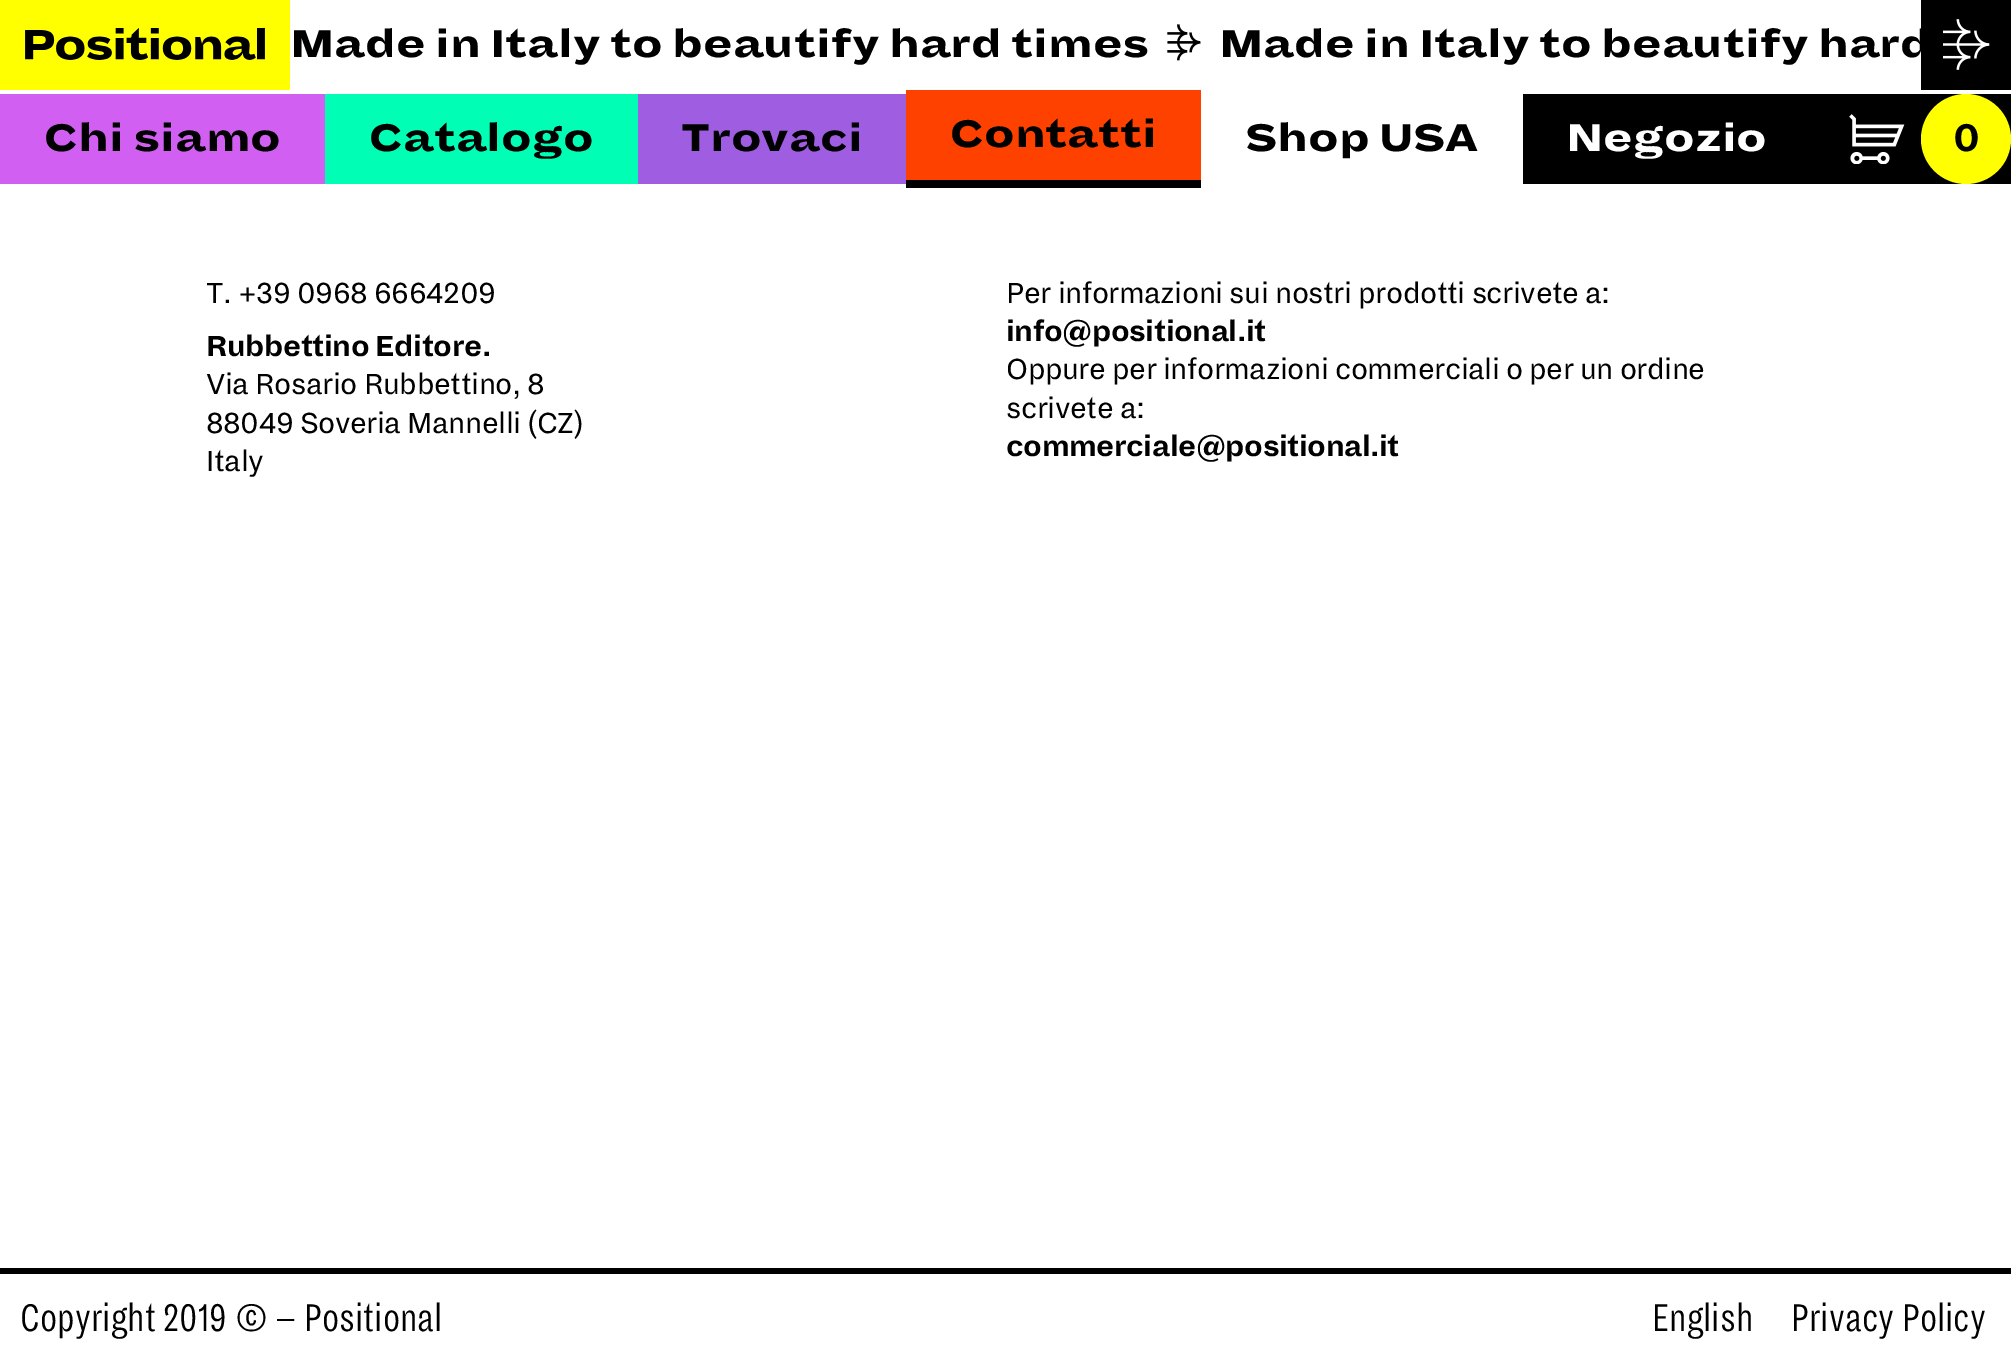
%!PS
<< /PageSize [2011 1363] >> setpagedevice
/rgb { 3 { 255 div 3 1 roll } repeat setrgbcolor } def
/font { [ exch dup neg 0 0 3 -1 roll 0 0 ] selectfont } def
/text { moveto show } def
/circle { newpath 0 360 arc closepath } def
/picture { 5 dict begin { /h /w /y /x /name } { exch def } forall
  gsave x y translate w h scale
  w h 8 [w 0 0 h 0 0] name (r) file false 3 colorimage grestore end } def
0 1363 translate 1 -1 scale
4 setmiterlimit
255 255 255 rgb
0 0 2011 1363 rectfill
255 255 0 rgb
0 0 290 90 rectfill
(img_01.rgb) 25 27 240 33 picture
(img_02.rgb) 1167 24 34 37 picture
0 0 0 rgb
1921 0 90 90 rectfill
(img_03.rgb) 1943 19 47 51 picture
209 96 242 rgb
0 94 325 90 rectfill
0 255 181 rgb
325 94 313 90 rectfill
159 93 226 rgb
638 94 268 90 rectfill
0 0 0 rgb
906 180 295 8 rectfill
255 65 0 rgb
906 90 295 90 rectfill
0 0 0 rgb
1523 94 488 90 rectfill
(img_04.rgb) 1849 114 56 50 picture
255 255 0 rgb
1966 139 45 circle fill
0 0 0 rgb
0 1268 2011 6 rectfill
/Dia-Black 42.5 font
(Made in Italy to beautify hard times) 290 57 text
(Made in Italy to beautify hard) 1219 57 text
(Chi siamo) 44 151 text
(Catalogo) 369 151 text
(Trovaci) 681 151 text
(Contatti) 950 147 text
(Shop USA) 1245 151 text
255 255 255 rgb
(Negozio) 1566 151 text
/Dia-Bold 42.5 font
0 0 0 rgb
(0) 1953 151 text
/Dia-Regular 32 font
206 303 moveto -0.5 0 (T. +39 0968 6664209) ashow
/Dia-Bold 32 font
206 356 moveto -0.5 0 (Rubbettino Editore.) ashow
/Dia-Regular 32 font
206 394 moveto -0.5 0 (Via Rosario Rubbettino, 8) ashow
206 433 moveto -0.5 0 (88049 Soveria Mannelli \(CZ\)) ashow
206 471 moveto -0.5 0 (Italy) ashow
1006 303 moveto -0.5 0 (Per informazioni sui nostri prodotti scrivete a:) ashow
/Dia-Bold 32 font
1006 341 moveto -0.5 0 (info@positional.it) ashow
/Dia-Regular 32 font
1006 379 moveto -0.5 0 (Oppure per informazioni commerciali o per un ordine) ashow
1006 418 moveto -0.5 0 (scrivete a:) ashow
/Dia-Bold 32 font
1006 456 moveto -0.5 0 (commerciale@positional.it) ashow
/Dia-Light 42.5 font
(Copyright 2019 © – Positional) 20 1331 text
(English) 1652 1331 text
(Privacy Policy) 1791 1331 text
showpage
